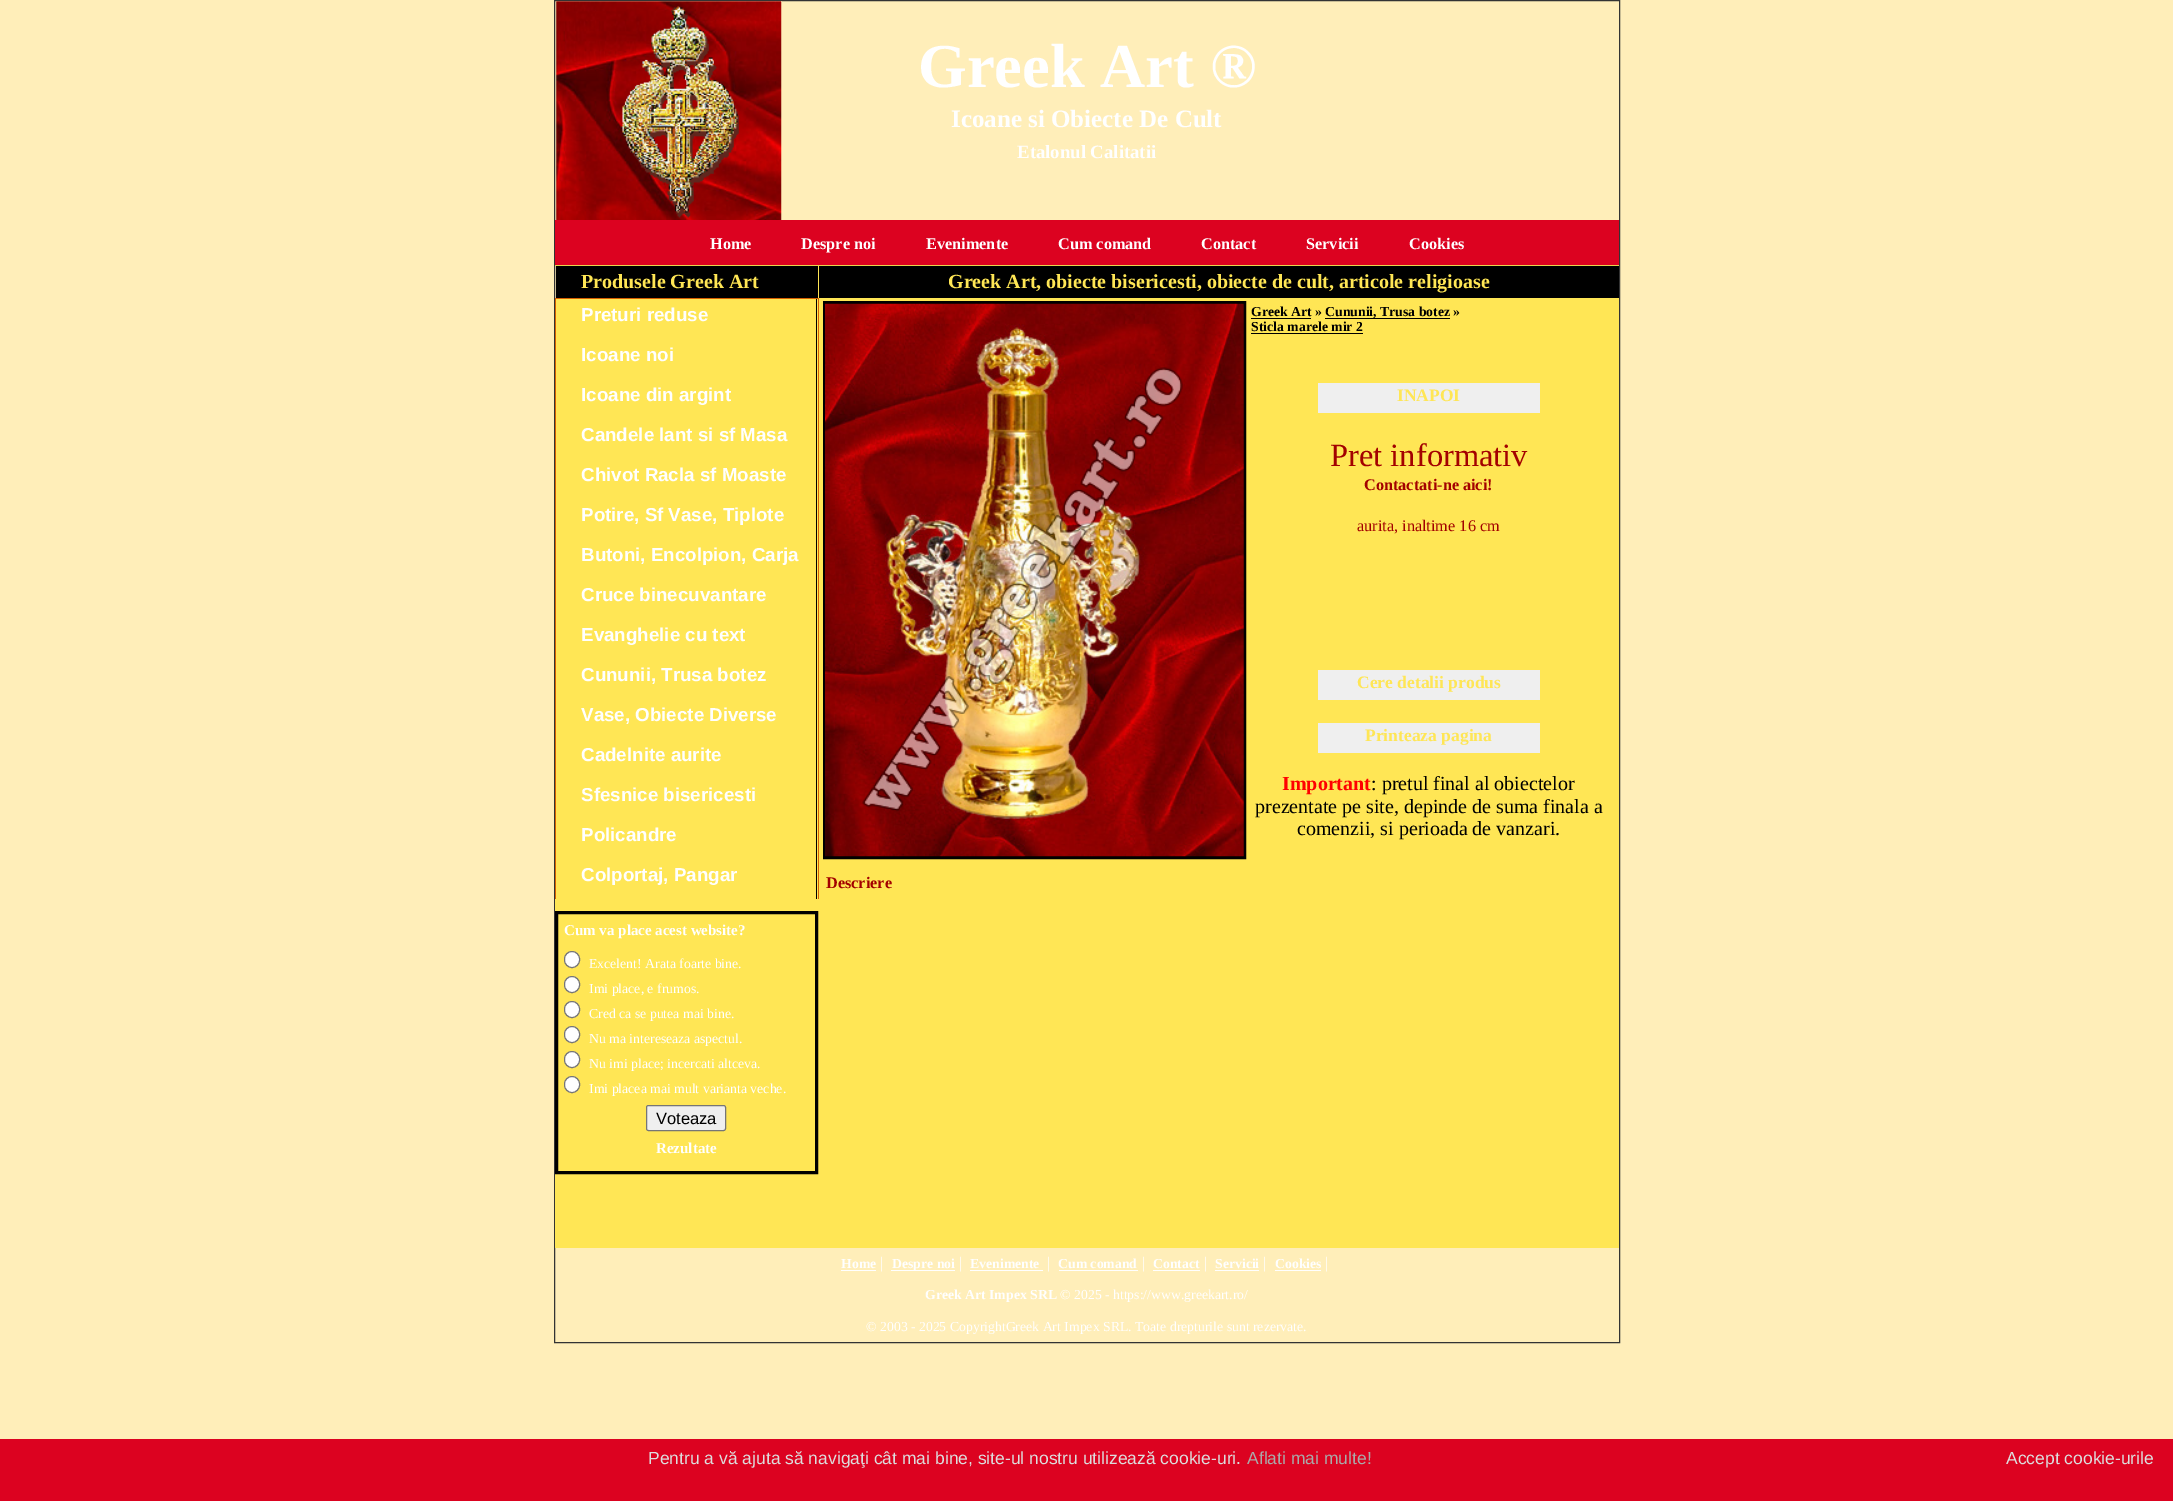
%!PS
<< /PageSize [2173 1501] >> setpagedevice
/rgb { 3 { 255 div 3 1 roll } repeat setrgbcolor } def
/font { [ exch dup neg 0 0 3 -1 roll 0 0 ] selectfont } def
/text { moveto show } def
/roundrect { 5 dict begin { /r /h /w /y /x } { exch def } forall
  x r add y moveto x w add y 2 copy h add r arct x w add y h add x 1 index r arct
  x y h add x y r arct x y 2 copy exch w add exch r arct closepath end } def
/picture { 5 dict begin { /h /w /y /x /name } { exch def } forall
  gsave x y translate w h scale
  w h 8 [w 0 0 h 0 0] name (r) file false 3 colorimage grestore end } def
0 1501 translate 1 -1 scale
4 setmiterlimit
255 238 185 rgb
0 0 2173 1501 rectfill
51 51 51 rgb
554.5 0.5 1065 1342 rectstroke
(img_01.rgb) 556 1 226 219 picture
220 2 32 rgb
555 220 1064 45 rectfill
234 212 77 rgb
555 265 1064 1 rectfill
0 0 0 rgb
556 266 262 32 rectfill
255 230 85 rgb
818 266 1 32 rectfill
0 0 0 rgb
819 266 800 32 rectfill
255 230 85 rgb
555 299 264 949 rectfill
215 97 0 rgb
555 298 264 1 rectfill
818 298 1 601 rectfill
555 298 1 601 rectfill
0 0 0 rgb
816 299 1 600 rectfill
3 setlinewidth
556.5 912.5 260 260 rectstroke
255 255 255 rgb
564.5 951.5 15 16 7.5 roundrect gsave fill grestore
118 118 118 rgb
1 setlinewidth
stroke
255 255 255 rgb
564.5 976.5 15 16 7.5 roundrect gsave fill grestore
118 118 118 rgb
stroke
255 255 255 rgb
564.5 1001.5 15 16 7.5 roundrect gsave fill grestore
118 118 118 rgb
stroke
255 255 255 rgb
564.5 1026.5 15 16 7.5 roundrect gsave fill grestore
118 118 118 rgb
stroke
255 255 255 rgb
564.5 1051.5 15 16 7.5 roundrect gsave fill grestore
118 118 118 rgb
stroke
255 255 255 rgb
564.5 1076.5 15 16 7.5 roundrect gsave fill grestore
118 118 118 rgb
stroke
239 239 239 rgb
646.5 1105.5 79 25 2 roundrect gsave fill grestore
118 118 118 rgb
stroke
255 230 85 rgb
819 298 800 950 rectfill
0 0 0 rgb
3 setlinewidth
824.5 302.5 420 555 rectstroke
(img_02.rgb) 825 303 419 554 picture
1251 318 60 1 rectfill
1325 318 125 1 rectfill
1251 333 112 1 rectfill
239 239 239 rgb
1318 383 222 30 rectfill
1318 670 222 30 rectfill
1318 723 222 30 rectfill
255 255 255 rgb
841 1270 35 1 rectfill
891 1270 64 1 rectfill
970 1270 73 1 rectfill
1059 1270 79 1 rectfill
1153 1270 47 1 rectfill
1215 1270 44 1 rectfill
1275 1270 46 1 rectfill
220 2 32 rgb
0 1439 2173 62 rectfill
/LiberationSerif-Bold 62.5 font
255 255 255 rgb
(Greek Art ®) 918 87 text
/LiberationSerif-Bold 25 font
(Icoane si Obiecte De Cult) 951 127 text
/LiberationSerif-Bold 18.75 font
(Etalonul Calitatii) 1017 158 text
/LiberationSerif-Bold 16.25 font
(Home) 710 249 text
(Despre noi) 801 249 text
(Evenimente) 926 249 text
(Cum comand) 1058 249 text
(Contact) 1201 249 text
(Servicii) 1306 249 text
(Cookies) 1409 249 text
/LiberationSerif-Bold 20 font
255 230 85 rgb
(Produsele Greek Art) 581 288 text
(Greek Art, obiecte bisericesti, obiecte de cult, articole religioase) 948 288 text
/LiberationSans-Bold 18.75 font
255 255 255 rgb
(Preturi reduse) 581 321 text
(Icoane noi) 581 361 text
(Icoane din argint) 581 401 text
(Candele lant si sf Masa) 581 441 text
(Chivot Racla sf Moaste) 581 481 text
(Potire, Sf Vase, Tiplote) 581 521 text
(Butoni, Encolpion, Carja) 581 561 text
(Cruce binecuvantare) 581 601 text
(Evanghelie cu text) 581 641 text
(Cununii, Trusa botez) 581 681 text
(Vase, Obiecte Diverse) 581 721 text
(Cadelnite aurite) 581 761 text
(Sfesnice bisericesti) 581 801 text
(Policandre) 581 841 text
(Colportaj, Pangar) 581 881 text
/LiberationSerif-Bold 15 font
(Cum va place acest website?) 564 935 text
/LiberationSerif-Regular 13.75 font
(Excelent! Arata foarte bine.) 589 968 text
(Imi place, e frumos.) 589 993 text
(Cred ca se putea mai bine.) 589 1018 text
(Nu ma intereseaza aspectul.) 589 1043 text
(Nu imi place; incercati altceva.) 589 1068 text
(Imi placea mai mult varianta veche.) 589 1093 text
/LiberationSans-Regular 16.5 font
0 0 0 rgb
(Voteaza) 656 1124 text
/LiberationSerif-Bold 15 font
255 255 255 rgb
(Rezultate) 656 1153 text
/LiberationSerif-Bold 13.75 font
0 0 0 rgb
(Greek Art ») 1251 316 text
(Cununii, Trusa botez ») 1325 316 text
(Sticla marele mir 2) 1251 331 text
/LiberationSerif-Bold 17.5 font
255 230 85 rgb
(INAPOI) 1397 401 text
/LiberationSerif-Regular 32.5 font
163 1 0 rgb
(Pret informativ) 1330 466 text
/LiberationSerif-Bold 16.25 font
(Contactati-ne aici!) 1364 490 text
/LiberationSerif-Regular 16.25 font
(aurita, inaltime 16 cm) 1357 531 text
/LiberationSerif-Bold 17.5 font
255 230 85 rgb
(Cere detalii produs) 1357 688 text
(Printeaza pagina) 1365 741 text
/LiberationSerif-Bold 20 font
255 0 0 rgb
(Important) 1282 790 text
/LiberationSerif-Regular 20 font
0 0 0 rgb
(: pretul final al obiectelor) 1371 790 text
(prezentate pe site, depinde de suma finala a) 1255 813 text
(comenzii, si perioada de vanzari.) 1297 835 text
/LiberationSerif-Bold 16.25 font
163 1 0 rgb
(Descriere) 826 888 text
/LiberationSerif-Bold 13.75 font
255 255 255 rgb
(Home) 841 1268 text
/LiberationSerif-Regular 16.25 font
(|) 880 1268 text
/LiberationSerif-Bold 13.75 font
(Despre noi) 892 1268 text
/LiberationSerif-Regular 16.25 font
(|) 959 1268 text
/LiberationSerif-Bold 13.75 font
(Evenimente) 970 1268 text
/LiberationSerif-Regular 16.25 font
(|) 1047 1268 text
/LiberationSerif-Bold 13.75 font
(Cum comand) 1058 1268 text
/LiberationSerif-Regular 16.25 font
(|) 1142 1268 text
/LiberationSerif-Bold 13.75 font
(Contact) 1153 1268 text
/LiberationSerif-Regular 16.25 font
(|) 1204 1268 text
/LiberationSerif-Bold 13.75 font
(Servicii) 1215 1268 text
/LiberationSerif-Regular 16.25 font
(|) 1263 1268 text
/LiberationSerif-Bold 13.75 font
(Cookies) 1275 1268 text
/LiberationSerif-Regular 16.25 font
(|) 1325 1268 text
/LiberationSerif-Bold 13.75 font
(Greek Art Impex SRL) 925 1299 text
/LiberationSerif-Regular 13.75 font
(© 2025 - https://www.greekart.ro/) 1060 1299 text
(© 2003 - 2025 CopyrightGreek Art Impex SRL. Toate drepturile sunt rezervate.) 866 1331 text
/LiberationSans-Regular 17.5 font
221 221 221 rgb
(Pentru a vă ajuta să navigaţi cât mai bine, site-ul nostru utilizează cookie-uri.) 648 1464 text
170 170 170 rgb
(Aflati mai multe!) 1247 1464 text
221 221 221 rgb
(Accept cookie-urile) 2006 1464 text
showpage
